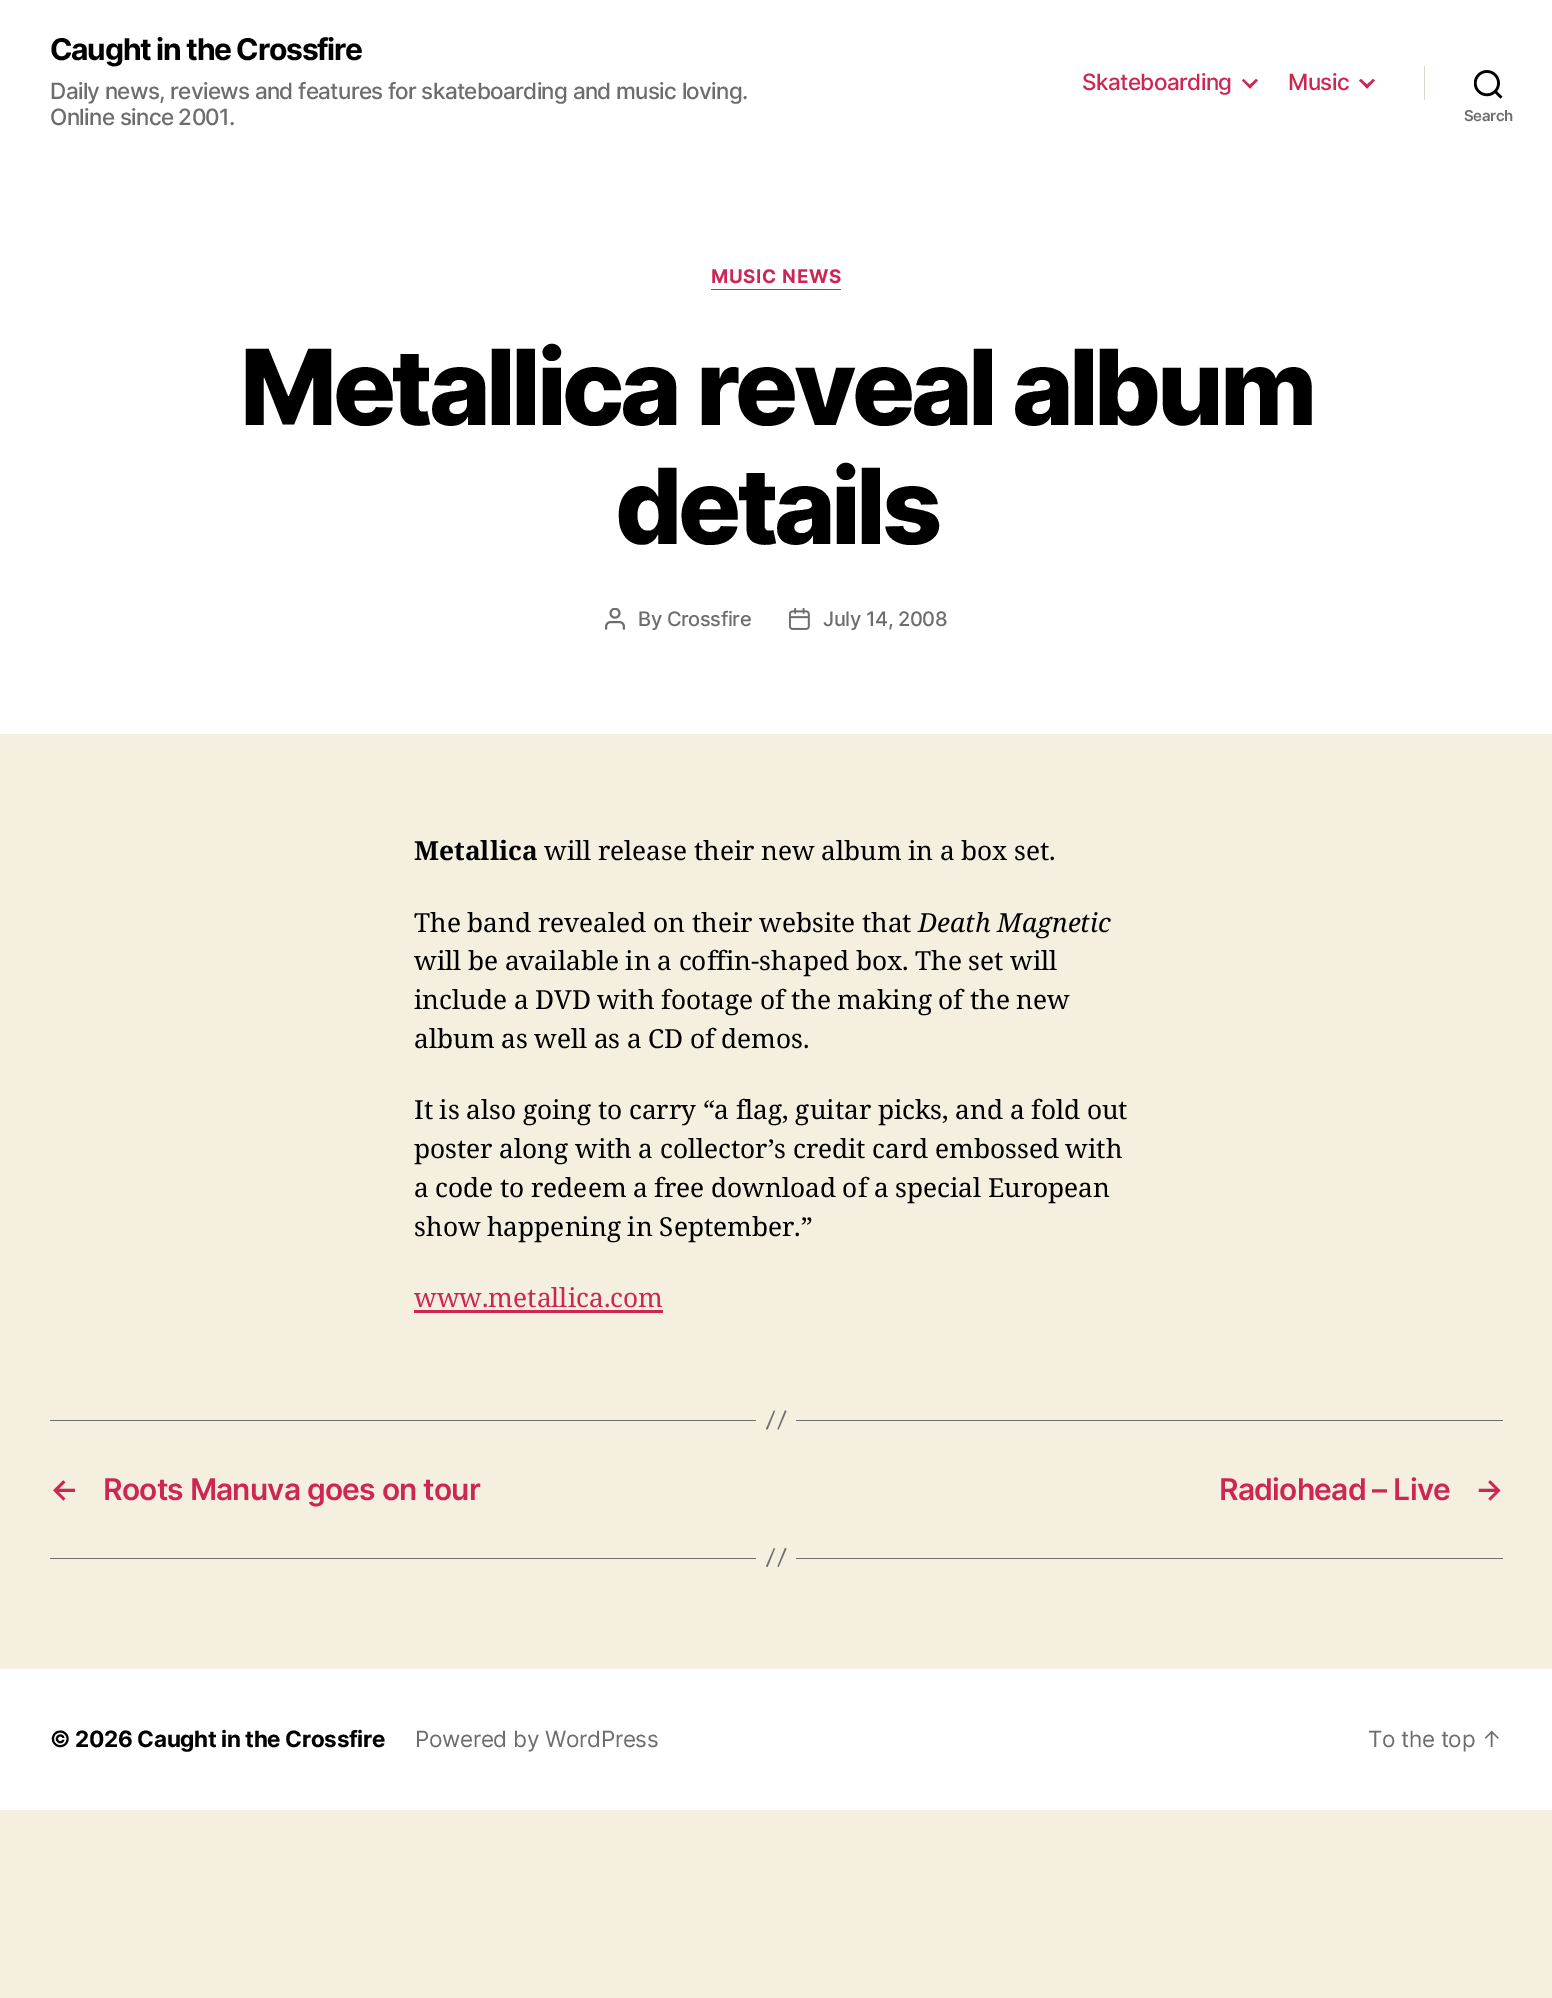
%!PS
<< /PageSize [1552 1998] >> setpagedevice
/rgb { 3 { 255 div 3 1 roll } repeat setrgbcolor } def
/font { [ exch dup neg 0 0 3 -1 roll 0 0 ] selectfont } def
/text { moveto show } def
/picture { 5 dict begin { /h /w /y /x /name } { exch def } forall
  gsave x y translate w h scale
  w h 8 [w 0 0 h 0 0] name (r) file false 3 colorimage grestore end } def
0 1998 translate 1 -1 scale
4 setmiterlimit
245 239 224 rgb
0 0 1552 1998 rectfill
255 255 255 rgb
0 0 1552 734 rectfill
205 38 83 rgb
1242 80.5 moveto 1.5 -1.5 rlineto 8 7.5 rlineto -1.5 2 rlineto closepath fill
1248 86.5 moveto 8 -7.5 rlineto 2 1.5 rlineto -8 8 rlineto closepath fill
1359 80.5 moveto 2 -1.5 rlineto 8 7.5 rlineto -2 2 rlineto closepath fill
1365 86.5 moveto 8 -7.5 rlineto 2 1.5 rlineto -8 8 rlineto closepath fill
220 215 202 rgb
1424 66 1 34 rectfill
(img_01.rgb) 1474 70 29 29 picture
205 38 83 rgb
711 289 130 1 rectfill
(img_02.rgb) 605 608 20 22 picture
(img_03.rgb) 789 608 21 22 picture
414 1310 249 3 rectfill
109 109 109 rgb
796 1420 707 1 rectfill
50 1420 706 1 rectfill
774 1410.5 moveto 1 0.5 rlineto -7.5 18.5 rlineto -1.5 -0.5 rlineto closepath 785 1410.5 moveto 1.5 0.5 rlineto -8 18.5 rlineto -1 -0.5 rlineto closepath fill
796 1558 707 1 rectfill
50 1558 706 1 rectfill
774 1548 moveto 1 0.5 rlineto -7.5 18.5 rlineto -1.5 -0.5 rlineto closepath 785 1548 moveto 1.5 0.5 rlineto -8 18.5 rlineto -1 -0.5 rlineto closepath fill
255 255 255 rgb
0 1669 1552 141 rectfill
/Inter-Bold 30 font
0 0 0 rgb
50 60 moveto -1.25 0 (Caught in the Crossfire) ashow
/Inter-Medium 22.5 font
109 109 109 rgb
50 99 moveto -0.7 0 (Daily news, reviews and features for skateboarding and music loving.) ashow
50 125 moveto -0.7 0 (Online since 2001.) ashow
205 38 83 rgb
1082 90 moveto -0.6 0 (Skateboarding) ashow
1288 90 moveto -0.6 0 (Music) ashow
/Inter-SemiBold 15 font
109 109 109 rgb
1464 121 moveto -0.35 0 (Search) ashow
/Inter-Bold 18.75 font
205 38 83 rgb
711 283 moveto 0.75 0 (MUSIC NEWS) ashow
/Inter-ExtraBold 105 font
0 0 0 rgb
240 425 moveto -4.4 0 (Metallica reveal album) ashow
615 544 moveto -4.4 0 (details) ashow
/Inter-Medium 20 font
109 109 109 rgb
638 626 moveto -0.35 0 (By Crossfire) ashow
823 626 moveto -0.35 0 (July 14, 2008) ashow
/NotoSerif-Bold 26.25 font
0 0 0 rgb
(Metallica) 414 860 text
/NotoSerif-Regular 26.25 font
544 860 moveto -0.3 0 32 (will release their new album in a box set.) widthshow
414 932 moveto -0.3 0 32 (The band revealed on their website that) widthshow
/NotoSerif-Italic 26.25 font
(Death Magnetic) 918 932 text
/NotoSerif-Regular 26.25 font
414 970 moveto -0.3 0 32 (will be available in a coffin-shaped box. The set will) widthshow
414 1009 moveto -0.3 0 32 (include a DVD with footage of the making of the new) widthshow
414 1048 moveto -0.3 0 32 (album as well as a CD of demos.) widthshow
414 1119 moveto -0.3 0 32 (It is also going to carry “a flag, guitar picks, and a fold out) widthshow
414 1158 moveto -0.3 0 32 (poster along with a collector’s credit card embossed with) widthshow
414 1197 moveto -0.3 0 32 (a code to redeem a free download of a special European) widthshow
414 1236 moveto -0.3 0 32 (show happening in September.”) widthshow
205 38 83 rgb
(www.metallica.com) 414 1307 text
/Inter-SemiBold 30 font
50 1500 moveto -0.8 0 (←) ashow
103 1500 moveto -0.8 0 (Roots Manuva goes on tour) ashow
1219 1500 moveto -0.8 0 (Radiohead – Live) ashow
1475 1500 moveto -0.8 0 (→) ashow
/Inter-Bold 22.5 font
0 0 0 rgb
50 1747 moveto -0.35 0 (© 2026 Caught in the Crossfire) ashow
/Inter-Regular 22.5 font
109 109 109 rgb
415 1747 moveto -0.35 0 (Powered by WordPress) ashow
1368 1747 moveto -0.35 0 (To the top ↑) ashow
showpage
